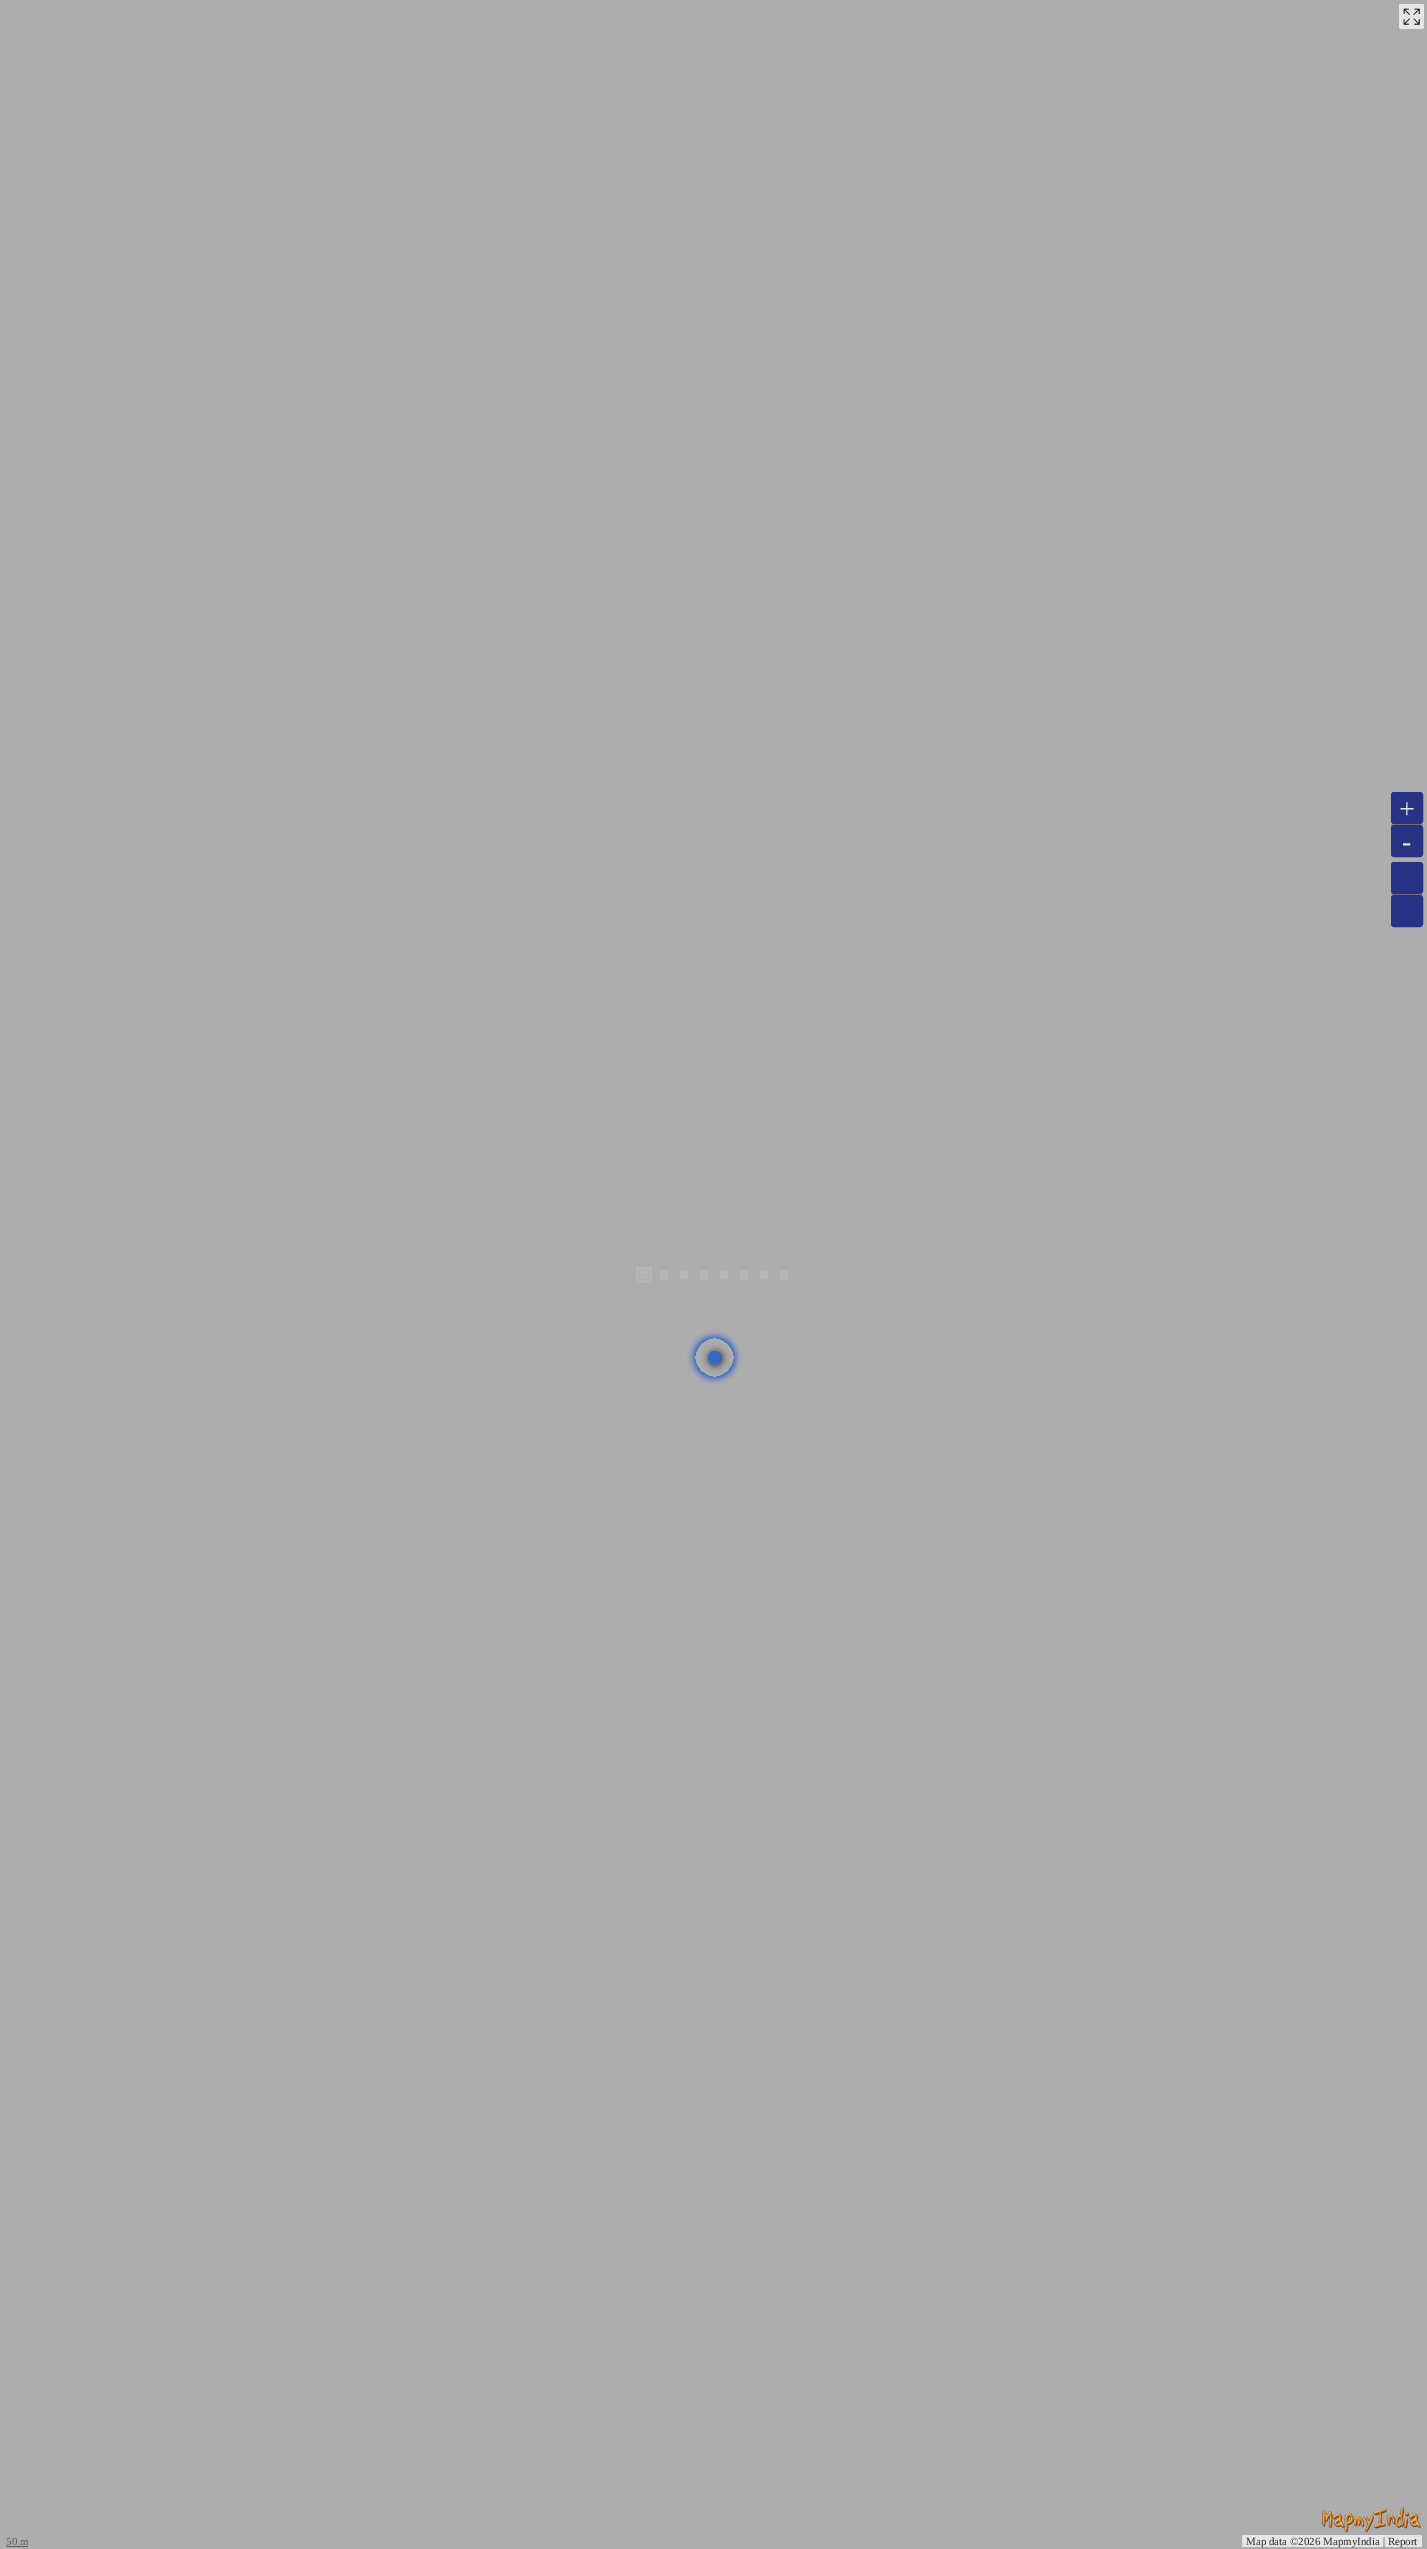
%!PS
<< /PageSize [1427 2549] /PageUsesTransparency true >> setpagedevice
/rgb { 3 { 255 div 3 1 roll } repeat setrgbcolor } def
/font { [ exch dup neg 0 0 3 -1 roll 0 0 ] selectfont } def
/text { moveto show } def
/alpha { dup .setfillconstantalpha .setstrokeconstantalpha } def
/circle { newpath 0 360 arc closepath } def
/roundrect { 5 dict begin { /r /h /w /y /x } { exch def } forall
  x r add y moveto x w add y 2 copy h add r arct x w add y h add x 1 index r arct
  x y h add x y r arct x y 2 copy exch w add exch r arct closepath end } def
/shadow { 12 dict begin { /a /b /q /h /w /y /x } { exch def } forall gsave /was 0 def
  9 -2 -9 { dup b mul 4 div /e exch def 1 sub .425 mul 2.718 exch exp 1 add a .99 .min exch div /now exch def
    1 1 now sub 1 was sub div sub alpha /was now def
    w h .min e 2 mul add 0 gt { x e sub y e sub w e 2 mul add h e 2 mul add
      q e add b .6 mul add w h .min 2 div e add .min 0 .max roundrect fill } if } for grestore end } def
/picture { 5 dict begin { /h /w /y /x /name } { exch def } forall
  gsave x y translate w h scale
  w h 8 [w 0 0 h 0 0] name (r) file false 3 colorimage grestore end } def
0 .pushpdf14devicefilter
0 2549 translate 1 -1 scale
4 setmiterlimit
173 173 173 rgb
0 0 1427 2549 rectfill
142 127 127 rgb
1391 824 32 1 rectfill
39 50 132 rgb
1391.5 792.5 31 31 2.5 roundrect gsave fill grestore
stroke
1391.5 825.5 31 31 2.5 roundrect gsave fill grestore
stroke
142 127 127 rgb
1391 894 32 1 rectfill
39 50 132 rgb
1391.5 862.5 31 31 2.5 roundrect gsave fill grestore
stroke
1391.5 895.5 31 31 2.5 roundrect gsave fill grestore
stroke
0 0 0 rgb
709 1352 13 13 6.5 4 0.75 shadow
52 104 198 rgb
714.5 1357.5 6.5 circle fill
gsave
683 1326 moveto 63 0 rlineto 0 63 rlineto -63 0 rlineto closepath 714.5 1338 moveto 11 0 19.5 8.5 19.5 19.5 rcurveto 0 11 -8.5 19.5 -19.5 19.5 rcurveto -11 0 -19.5 -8.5 -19.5 -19.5 rcurveto 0 -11 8.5 -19.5 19.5 -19.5 rcurveto closepath eoclip newpath
693 1336 43 43 21.5 3 1 shadow
grestore
230 230 230 rgb
1399 4 25 25 2 roundrect fill
(img_01.rgb) 1403 8 17 17 picture
92 92 92 rgb
6 2546 22 1 rectfill
(img_02.rgb) 1322 2507 100 26 picture
230 230 230 rgb
1242 2535 180 12 rectfill
(img_03.rgb) 636 1267 152 16 picture
/LiberationSerif-Regular 28 font
(+) 1399 818 text
(-) 1402 851 text
/LiberationSerif-Regular 11 font
92 92 92 rgb
(50 m) 6 2545 text
46 46 46 rgb
(Map data ©2026 MapmyIndia | Report) 1246 2545 text
.poppdf14devicefilter showpage
